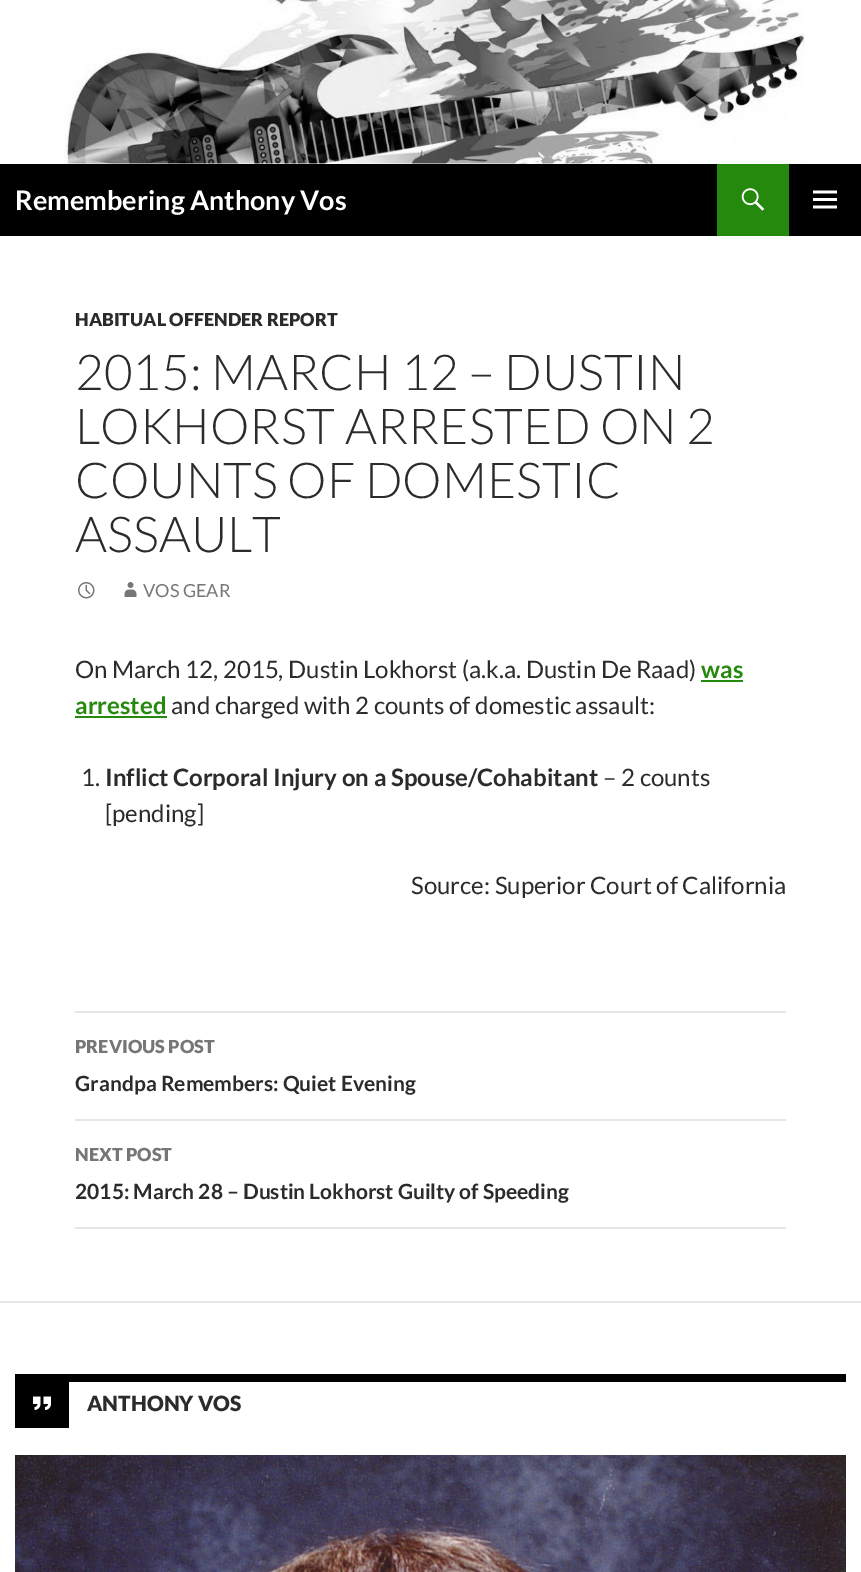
%!PS
<< /PageSize [861 1572] >> setpagedevice
/rgb { 3 { 255 div 3 1 roll } repeat setrgbcolor } def
/font { [ exch dup neg 0 0 3 -1 roll 0 0 ] selectfont } def
/text { moveto show } def
/picture { 5 dict begin { /h /w /y /x /name } { exch def } forall
  gsave x y translate w h scale
  w h 8 [w 0 0 h 0 0] name (r) file false 3 colorimage grestore end } def
0 1572 translate 1 -1 scale
4 setmiterlimit
255 255 255 rgb
0 0 861 1572 rectfill
(img_01.rgb) 64 0 741 164 picture
0 0 0 rgb
0 164 861 72 rectfill
36 137 13 rgb
717 164 72 72 rectfill
(img_02.rgb) 741 188 24 23 picture
(img_03.rgb) 813 190 24 19 picture
(img_04.rgb) 78 582 17 17 picture
(img_05.rgb) 124 582 13 15 picture
701 680 42 2 rectfill
75 716 92 2 rectfill
230 230 230 rgb
75 1011 711 2 rectfill
75 1119 711 2 rectfill
75 1227 711 2 rectfill
0 1301 861 2 rectfill
0 0 0 rgb
15 1374 831 8 rectfill
15 1382 54 46 rectfill
(img_06.rgb) 33 1396 18 14 picture
(img_07.rgb) 15 1455 831 117 picture
/Lato-Bold 27 font
255 255 255 rgb
(Remembering Anthony Vos) 15 210 text
/Lato-Black 18 font
43 43 43 rgb
(HABITUAL OFFENDER REPORT) 75 326 text
/Lato-Light 49.5 font
(2015: MARCH 12 – DUSTIN) 75 390 text
(LOKHORST ARRESTED ON 2) 75 444 text
(COUNTS OF DOMESTIC) 75 498 text
(ASSAULT) 75 552 text
/Lato-Regular 18 font
118 118 118 rgb
(VOS GEAR) 143 597 text
/Lato-Regular 24 font
43 43 43 rgb
(On March 12, 2015, Dustin Lokhorst \(a.k.a. Dustin De Raad\)) 75 678 text
/Lato-Bold 24 font
36 137 13 rgb
(was) 701 678 text
(arrested) 75 714 text
/Lato-Regular 24 font
43 43 43 rgb
(and charged with 2 counts of domestic assault:) 171 714 text
(1.) 81 786 text
/Lato-Bold 24 font
(Inflict Corporal Injury on a Spouse/Cohabitant) 105 786 text
/Lato-Regular 24 font
(– 2 counts) 603 786 text
([pending]) 105 822 text
(Source: Superior Court of California) 411 894 text
/Lato-Black 18 font
118 118 118 rgb
(PREVIOUS POST) 75 1053 text
/Lato-Bold 21 font
43 43 43 rgb
(Grandpa Remembers: Quiet Evening) 75 1091 text
/Lato-Black 18 font
118 118 118 rgb
(NEXT POST) 75 1161 text
/Lato-Bold 21 font
43 43 43 rgb
(2015: March 28 – Dustin Lokhorst Guilty of Speeding) 75 1199 text
/Lato-Black 21 font
(ANTHONY VOS) 87 1411 text
showpage
